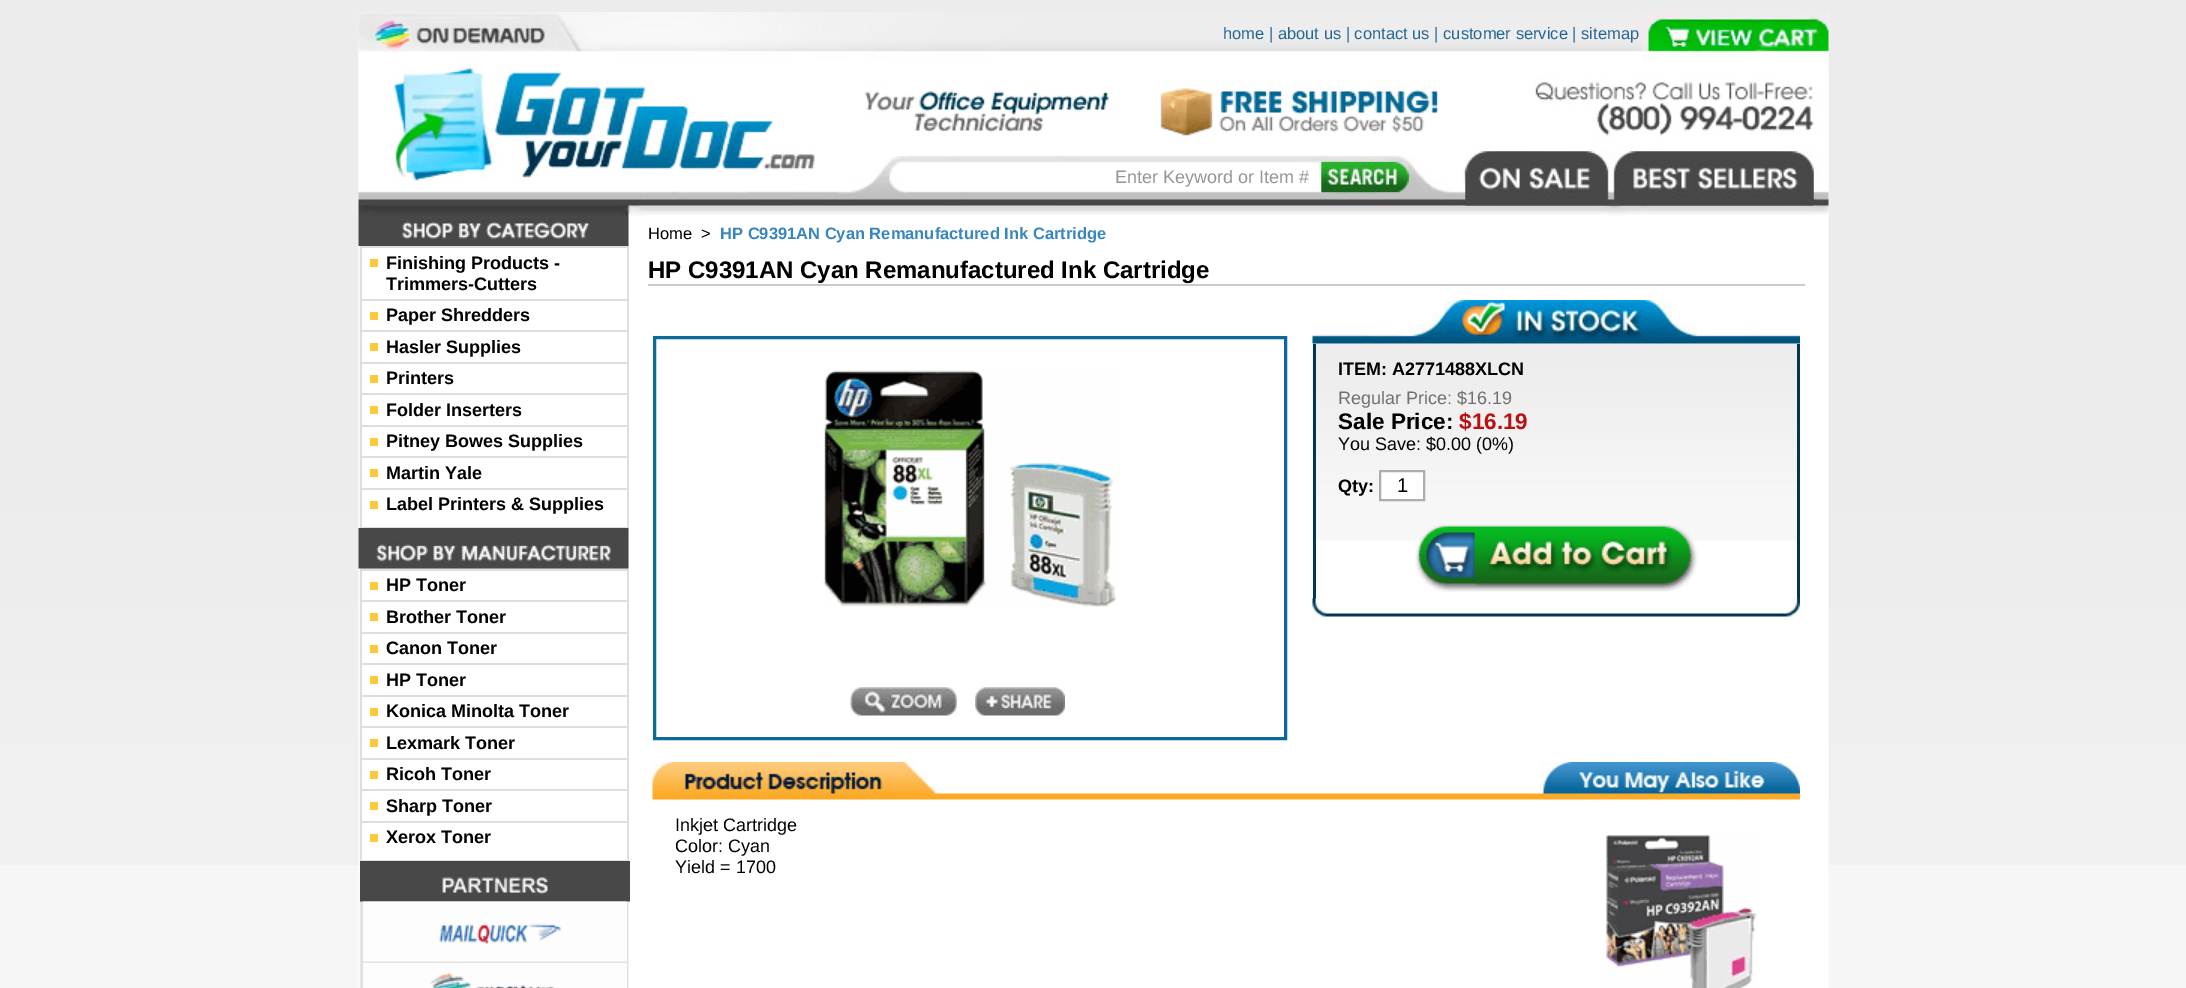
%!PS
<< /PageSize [2186 988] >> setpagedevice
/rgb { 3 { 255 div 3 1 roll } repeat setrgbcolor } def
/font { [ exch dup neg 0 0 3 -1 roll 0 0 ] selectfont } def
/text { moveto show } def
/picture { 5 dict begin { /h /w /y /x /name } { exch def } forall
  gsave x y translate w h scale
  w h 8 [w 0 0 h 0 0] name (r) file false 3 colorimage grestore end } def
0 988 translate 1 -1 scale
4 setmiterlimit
246 246 246 rgb
0 0 2186 988 rectfill
(img_01.rgb) 0 0 2186 865 picture
(img_02.rgb) 358 12 1471 976 picture
(img_03.rgb) 358 12 1471 204 picture
255 255 255 rgb
903 190 1 1 rectfill
(img_04.rgb) 1321 162 88 30 picture
(img_05.rgb) 1465 151 349 55 picture
(img_06.rgb) 358 216 271 30 picture
362 248 265 279 rectfill
222 222 222 rgb
627 246 2 282 rectfill
360 527 269 2 rectfill
360 246 2 282 rectfill
255 200 58 rgb
370 259 8 8 rectfill
222 222 222 rgb
362 246 265 2 rectfill
255 200 58 rgb
370 312 8 8 rectfill
222 222 222 rgb
362 299 265 2 rectfill
255 200 58 rgb
370 343 8 8 rectfill
222 222 222 rgb
362 330 265 2 rectfill
255 200 58 rgb
370 375 8 8 rectfill
222 222 222 rgb
362 362 265 2 rectfill
255 200 58 rgb
370 406 8 8 rectfill
222 222 222 rgb
362 393 265 2 rectfill
255 200 58 rgb
370 438 8 8 rectfill
222 222 222 rgb
362 425 265 2 rectfill
255 200 58 rgb
370 469 8 8 rectfill
222 222 222 rgb
362 456 265 2 rectfill
255 200 58 rgb
370 501 8 8 rectfill
222 222 222 rgb
362 488 265 2 rectfill
(img_07.rgb) 358 528 271 41 picture
255 255 255 rgb
362 571 265 289 rectfill
222 222 222 rgb
627 569 2 292 rectfill
360 860 269 1 rectfill
360 569 2 292 rectfill
255 200 58 rgb
370 582 8 8 rectfill
222 222 222 rgb
362 569 265 2 rectfill
255 200 58 rgb
370 613 8 8 rectfill
222 222 222 rgb
362 600 265 2 rectfill
255 200 58 rgb
370 645 8 8 rectfill
222 222 222 rgb
362 632 265 2 rectfill
255 200 58 rgb
370 676 8 8 rectfill
222 222 222 rgb
362 663 265 2 rectfill
255 200 58 rgb
370 708 8 8 rectfill
222 222 222 rgb
362 695 265 2 rectfill
255 200 58 rgb
370 739 8 8 rectfill
222 222 222 rgb
362 726 265 2 rectfill
255 200 58 rgb
370 771 8 8 rectfill
222 222 222 rgb
362 758 265 2 rectfill
255 200 58 rgb
370 802 8 8 rectfill
222 222 222 rgb
362 789 265 2 rectfill
255 200 58 rgb
370 834 8 8 rectfill
222 222 222 rgb
362 821 265 2 rectfill
(img_08.rgb) 360 861 270 41 picture
(img_09.rgb) 363 901 264 61 picture
(img_10.rgb) 363 963 264 25 picture
202 202 202 rgb
648 284 1157 2 rectfill
13 104 156 rgb
3 setlinewidth
654.5 337.5 631 401 rectstroke
(img_11.rgb) 823 370 294 237 picture
(img_12.rgb) 850 687 107 29 picture
(img_13.rgb) 975 687 90 29 picture
(img_15.rgb) 1312 343 488 198 picture
(img_14.rgb) 1312 300 488 44 picture
2 54 83 rgb
1797 344 3 255 rectfill
1313 344 3 255 rectfill
255 255 255 rgb
1380 471 moveto 44 0 rlineto 0 29 rlineto -44 0 rlineto closepath gsave fill grestore
171 173 179 rgb
2 setlinewidth
stroke
(img_16.rgb) 1415 524 283 68 picture
(img_17.rgb) 1312 598 488 19 picture
(img_18.rgb) 652 762 1148 38 picture
(img_19.rgb) 1606 835 151 153 picture
/LiberationSans-Regular 16.5 font
37 103 150 rgb
(home | about us | contact us | customer service | sitemap) 1223 39 text
/LiberationSans-Regular 18 font
149 149 149 rgb
(Enter Keyword or Item #) 1115 183 text
/LiberationSans-Bold 18 font
0 0 0 rgb
(Finishing Products -) 386 269 text
(Trimmers-Cutters) 386 290 text
(Paper Shredders) 386 321 text
(Hasler Supplies) 386 353 text
(Printers) 386 384 text
(Folder Inserters) 386 416 text
(Pitney Bowes Supplies) 386 447 text
(Martin Yale) 386 479 text
(Label Printers & Supplies) 386 510 text
(HP Toner) 386 591 text
(Brother Toner) 386 623 text
(Canon Toner) 386 654 text
(HP Toner) 386 686 text
(Konica Minolta Toner) 386 717 text
(Lexmark Toner) 386 749 text
(Ricoh Toner) 386 780 text
(Sharp Toner) 386 812 text
(Xerox Toner) 386 843 text
/LiberationSans-Regular 16.5 font
(Home) 648 239 text
(>) 701 239 text
/LiberationSans-Bold 16.5 font
55 134 191 rgb
(HP C9391AN Cyan Remanufactured Ink Cartridge) 720 239 text
/LiberationSans-Bold 24 font
0 0 0 rgb
(HP C9391AN Cyan Remanufactured Ink Cartridge) 648 278 text
/LiberationSans-Bold 18 font
(ITEM: A2771488XLCN) 1338 375 text
/LiberationSans-Regular 18 font
112 112 112 rgb
(Regular Price: $16.19) 1338 404 text
/LiberationSans-Bold 22.5 font
0 0 0 rgb
(Sale Price:) 1338 429 text
188 16 16 rgb
($16.19) 1459 429 text
/LiberationSans-Regular 18 font
0 0 0 rgb
(You Save: $0.00 \(0%\)) 1338 450 text
/LiberationSans-Bold 18 font
(Qty:) 1338 492 text
/LiberationSans-Regular 20 font
(1) 1397 492 text
/LiberationSans-Regular 18 font
(Inkjet Cartridge) 675 831 text
(Color: Cyan) 675 852 text
(Yield = 1700) 675 873 text
showpage
